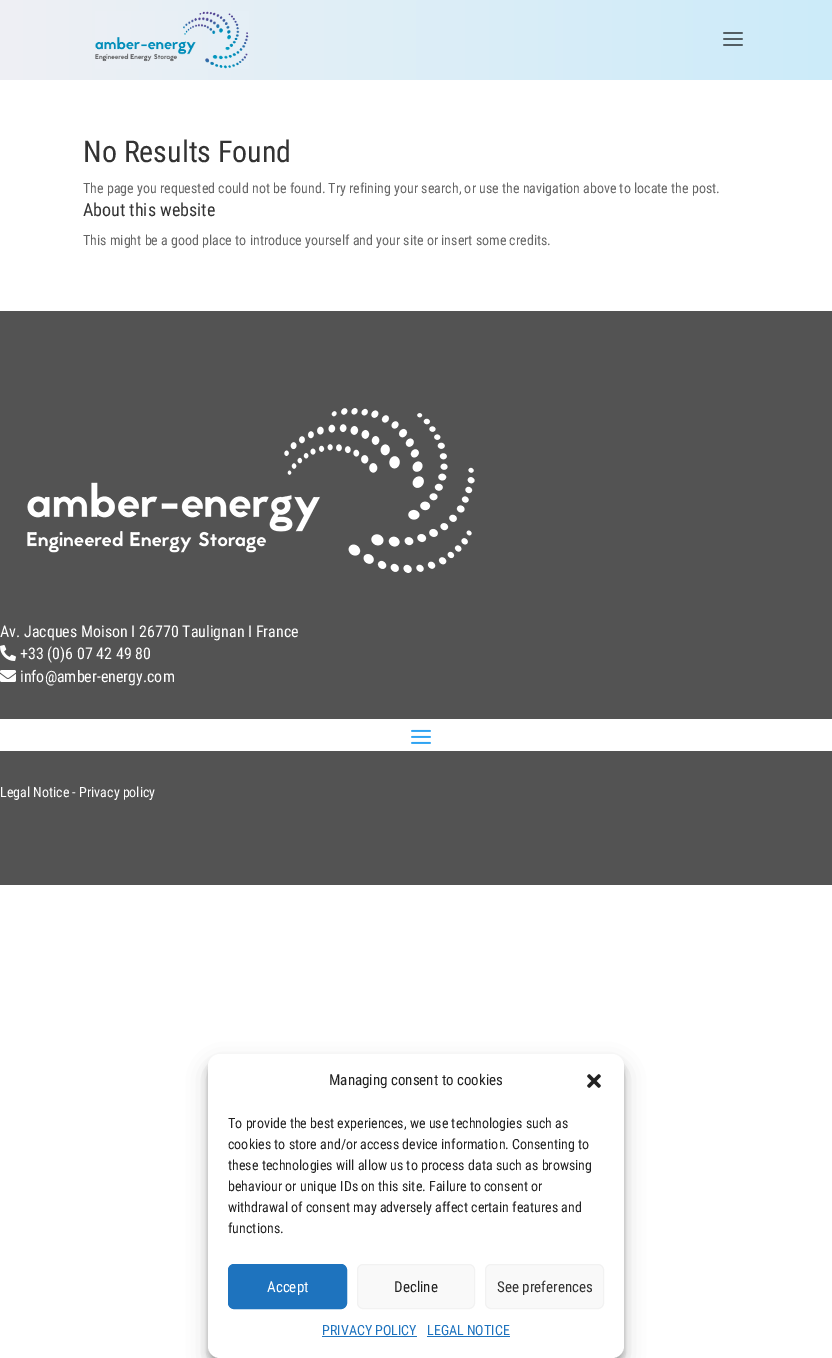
%!PS
<< /PageSize [832 1358] /PageUsesTransparency true >> setpagedevice
/rgb { 3 { 255 div 3 1 roll } repeat setrgbcolor } def
/font { [ exch dup neg 0 0 3 -1 roll 0 0 ] selectfont } def
/text { moveto show } def
/alpha { dup .setfillconstantalpha .setstrokeconstantalpha } def
/roundrect { 5 dict begin { /r /h /w /y /x } { exch def } forall
  x r add y moveto x w add y 2 copy h add r arct x w add y h add x 1 index r arct
  x y h add x y r arct x y 2 copy exch w add exch r arct closepath end } def
/shadow { 12 dict begin { /a /b /q /h /w /y /x } { exch def } forall gsave /was 0 def
  9 -2 -9 { dup b mul 4 div /e exch def 1 sub .425 mul 2.718 exch exp 1 add a .99 .min exch div /now exch def
    1 1 now sub 1 was sub div sub alpha /was now def
    w h .min e 2 mul add 0 gt { x e sub y e sub w e 2 mul add h e 2 mul add
      q e add b .6 mul add w h .min 2 div e add .min 0 .max roundrect fill } if } for grestore end } def
/picture { 5 dict begin { /h /w /y /x /name } { exch def } forall
  gsave x y translate w h scale
  w h 8 [w 0 0 h 0 0] name (r) file false 3 colorimage grestore end } def
0 .pushpdf14devicefilter
0 1358 translate 1 -1 scale
4 setmiterlimit
255 255 255 rgb
0 0 832 1358 rectfill
gsave 0 0 moveto 832 0 rlineto 0 80 rlineto -832 0 rlineto closepath clip newpath
<< /ShadingType 2 /ColorSpace /DeviceRGB /Coords [832 40 0 40] /Extend [true true] /Function << /FunctionType 2 /Domain [0 1] /C0 [0.8 0.922 0.98] /C1 [0.937 0.941 0.957] /N 1 >> >> shfill grestore
(img_01.rgb) 95 11 154 58 picture
(img_02.rgb) 723 32 20 14 picture
83 83 83 rgb
0 311 832 574 rectfill
(img_03.rgb) 27 408 448 165 picture
(img_04.rgb) 0 645 16 16 picture
(img_05.rgb) 0 670 16 12 picture
255 255 255 rgb
0 719 832 32 rectfill
(img_06.rgb) 411 729 20 15 picture
0 0 0 rgb
208 1060 416 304 12 3 0.23 shadow
208 1064 416 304 12 10 0.19 shadow
255 255 255 rgb
208 1054 416 304 12 roundrect fill
(img_07.rgb) 587 1074 14 14 picture
30 115 190 rgb
228.5 1264.5 118 44 5.5 roundrect gsave fill grestore
stroke
249 249 249 rgb
357.5 1264.5 117 44 5.5 roundrect gsave fill grestore
242 242 242 rgb
stroke
249 249 249 rgb
485.5 1264.5 118 44 5.5 roundrect gsave fill grestore
242 242 242 rgb
stroke
30 115 190 rgb
322 1336 95 1 rectfill
427 1336 83 1 rectfill
/RobotoCondensed-Regular 30 font
51 51 51 rgb
(No Results Found) 83 162 text
/RobotoCondensed-Regular 14 font
102 102 102 rgb
(The page you requested could not be found. Try refining your search, or use the navigation above to locate the post.) 83 193 text
/RobotoCondensed-Regular 18 font
51 51 51 rgb
(About this website) 83 216 text
/RobotoCondensed-Regular 14 font
102 102 102 rgb
(This might be a good place to introduce yourself and your site or insert some credits.) 83 245 text
/RobotoCondensed-Regular 16 font
255 255 255 rgb
(Av. Jacques Moison I 26770 Taulignan I France) 0 637 text
(+33 \(0\)6 07 42 49 80) 20 659 text
(info@amber-energy.com) 20 682 text
/RobotoCondensed-Regular 14 font
(Legal Notice - Privacy policy) 0 797 text
/RobotoCondensed-Regular 15 font
34 34 34 rgb
(Managing consent to cookies) 329 1085 text
/RobotoCondensed-Regular 14 font
(To provide the best experiences, we use technologies such as) 228 1128 text
(cookies to store and/or access device information. Consenting to) 228 1149 text
(these technologies will allow us to process data such as browsing) 228 1170 text
(behaviour or unique IDs on this site. Failure to consent or) 228 1191 text
(withdrawal of consent may adversely affect certain features and) 228 1212 text
(functions.) 228 1233 text
/RobotoCondensed-Regular 15 font
255 255 255 rgb
(Accept) 267 1292 text
34 34 34 rgb
(Decline) 394 1292 text
51 51 51 rgb
(See preferences) 497 1292 text
/RobotoCondensed-Regular 14 font
30 115 190 rgb
(PRIVACY POLICY) 322 1335 text
(LEGAL NOTICE) 427 1335 text
.poppdf14devicefilter showpage
